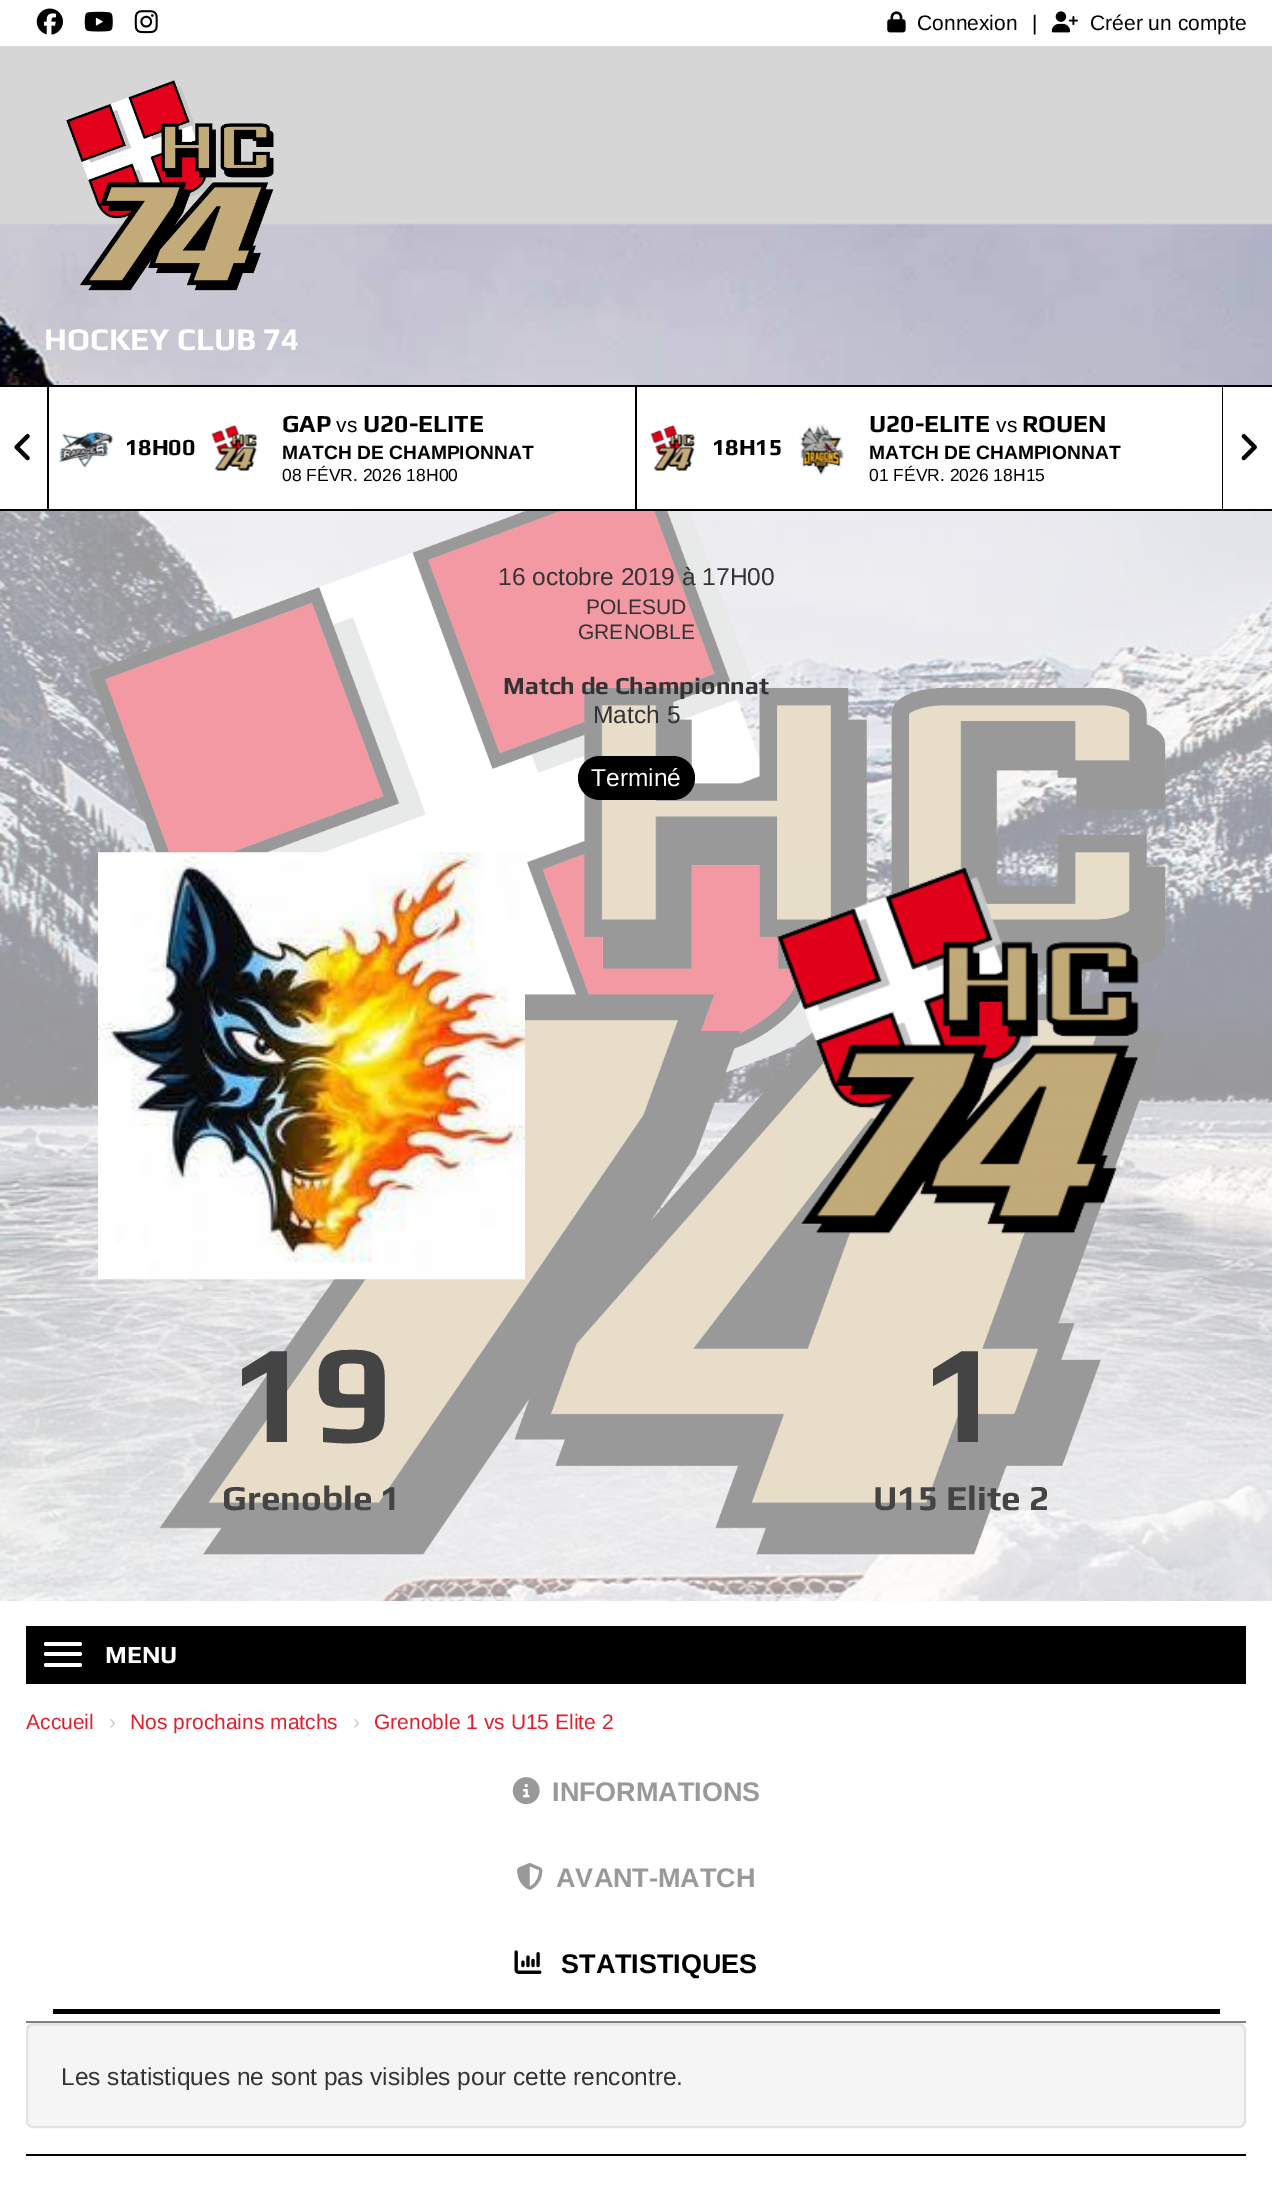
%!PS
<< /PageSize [1272 2198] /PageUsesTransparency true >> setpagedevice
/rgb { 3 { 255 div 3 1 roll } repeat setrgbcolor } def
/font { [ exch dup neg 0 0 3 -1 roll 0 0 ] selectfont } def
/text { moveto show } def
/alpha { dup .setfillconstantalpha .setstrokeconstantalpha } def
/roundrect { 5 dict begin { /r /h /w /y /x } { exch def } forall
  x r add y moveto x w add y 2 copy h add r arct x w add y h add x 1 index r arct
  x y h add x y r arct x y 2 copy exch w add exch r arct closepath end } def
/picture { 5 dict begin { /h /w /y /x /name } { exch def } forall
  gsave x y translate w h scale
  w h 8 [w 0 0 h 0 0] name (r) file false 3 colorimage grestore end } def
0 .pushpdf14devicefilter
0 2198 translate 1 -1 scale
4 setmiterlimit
214 214 214 rgb
0 0 1272 2198 rectfill
(img_01.rgb) 0 223 1272 1378 picture
255 255 255 rgb
0 0 1272 46 rectfill
(img_02.rgb) 36 8 27 27 picture
(img_03.rgb) 84 11 29 21 picture
(img_04.rgb) 134 10 24 24 picture
(img_05.rgb) 887 11 19 22 picture
(img_06.rgb) 1051 11 27 22 picture
(img_07.rgb) 66 80 208 211 picture
0 387 1272 122 rectfill
0 0 0 rgb
0 385 1272 2 rectfill
0 509 1272 2 rectfill
47 387 2 122 rectfill
(img_08.rgb) 14 434 16 27 picture
(img_09.rgb) 1241 434 16 27 picture
635 387 2 122 rectfill
(img_10.rgb) 59 431 54 37 picture
(img_11.rgb) 211 425 46 46 picture
1222 387 1 122 rectfill
(img_12.rgb) 650 425 45 46 picture
(img_13.rgb) 799 424 45 52 picture
(img_14.rgb) 89 511 1077 1044 picture
0.6 alpha
255 255 255 rgb
0 511 1272 1090 rectfill
1 alpha
0 0 0 rgb
578 756 117 44 22 roundrect fill
(img_15.rgb) 98 852 427 428 picture
(img_16.rgb) 777 866 362 368 picture
255 255 255 rgb
0 1601 1272 597 rectfill
0 0 0 rgb
26 1626 1220 58 rectfill
255 255 255 rgb
44 1642 38 4 2 roundrect fill
44 1652 38 4 2 roundrect fill
44 1663 38 4 2 roundrect fill
128 128 128 rgb
26 2021 1220 2 rectfill
(img_17.rgb) 512 1777 28 28 picture
(img_18.rgb) 517 1863 26 27 picture
(img_19.rgb) 514 1950 28 24 picture
0 0 0 rgb
53 2009 1167 5 rectfill
245 245 245 rgb
26 2023 1220 105 7 roundrect fill
233 233 233 rgb
33 2026 moveto 1206 0 rlineto 3 0 5 3 5 6 rcurveto 0 -2 rlineto 0 -3 -2 -5 -5 -5 rcurveto -1206 0 rlineto -3 0 -5 2 -5 5 rcurveto 0 2 rlineto 0 -3 2 -6 5 -6 rcurveto closepath fill
227 227 227 rgb
2 setlinewidth
27 2024 1218 103 6 roundrect stroke
0 0 0 rgb
26 2154 1220 2 rectfill
/LiberationSans-Regular 21 font
(Connexion) 917 30 text
(|) 1032 30 text
(Créer un compte) 1090 30 text
/Play-Bold 31.5 font
255 255 255 rgb
(HOCKEY CLUB 74) 44 350 text
/Play-Bold 23 font
0 0 0 rgb
(18H00) 125 455 text
/Play-Bold 24.5 font
(GAP) 282 432 text
/LiberationSans-Regular 21 font
(vs) 336 432 text
/Play-Bold 24.5 font
(U20-ELITE) 363 432 text
/LiberationSans-Bold 19.25 font
(MATCH DE CHAMPIONNAT) 282 459 text
/LiberationSans-Regular 17.5 font
(08 FÉVR. 2026 18H00) 282 481 text
/Play-Bold 23 font
(18H15) 712 455 text
/Play-Bold 24.5 font
(U20-ELITE) 869 432 text
/LiberationSans-Regular 21 font
(vs) 996 432 text
/Play-Bold 24.5 font
(ROUEN) 1022 432 text
/LiberationSans-Bold 19.25 font
(MATCH DE CHAMPIONNAT) 869 459 text
/LiberationSans-Regular 17.5 font
(01 FÉVR. 2026 18H15) 869 481 text
/LiberationSans-Regular 24.5 font
51 51 51 rgb
(16 octobre 2019 à 17H00) 498 585 text
/LiberationSans-Regular 21 font
(POLESUD) 586 614 text
(GRENOBLE) 578 639 text
/Play-Bold 24.5 font
(Match de Championnat) 503 694 text
/LiberationSans-Regular 24.5 font
(Match 5) 593 723 text
255 255 255 rgb
(Terminé) 591 786 text
/Play-Bold 140 font
68 68 68 rgb
(19) 230 1442 text
(1) 921 1442 text
/Play-Bold 35 font
(Grenoble 1) 222 1510 text
(U15 Elite 2) 873 1510 text
/Play-Bold 24.5 font
255 255 255 rgb
(MENU) 105 1663 text
/LiberationSans-Regular 21 font
226 30 44 rgb
(Accueil) 26 1729 text
204 204 204 rgb
(›) 109 1729 text
226 30 44 rgb
(Nos prochains matchs) 130 1729 text
204 204 204 rgb
(›) 353 1729 text
226 30 44 rgb
(Grenoble 1 vs U15 Elite 2) 374 1729 text
/LiberationSans-Bold 27 font
153 153 153 rgb
(INFORMATIONS) 552 1801 text
(AVANT-MATCH) 556 1887 text
0 0 0 rgb
(STATISTIQUES) 561 1973 text
/LiberationSans-Regular 24.5 font
51 51 51 rgb
(Les statistiques ne sont pas visibles pour cette rencontre.) 61 2085 text
.poppdf14devicefilter showpage
